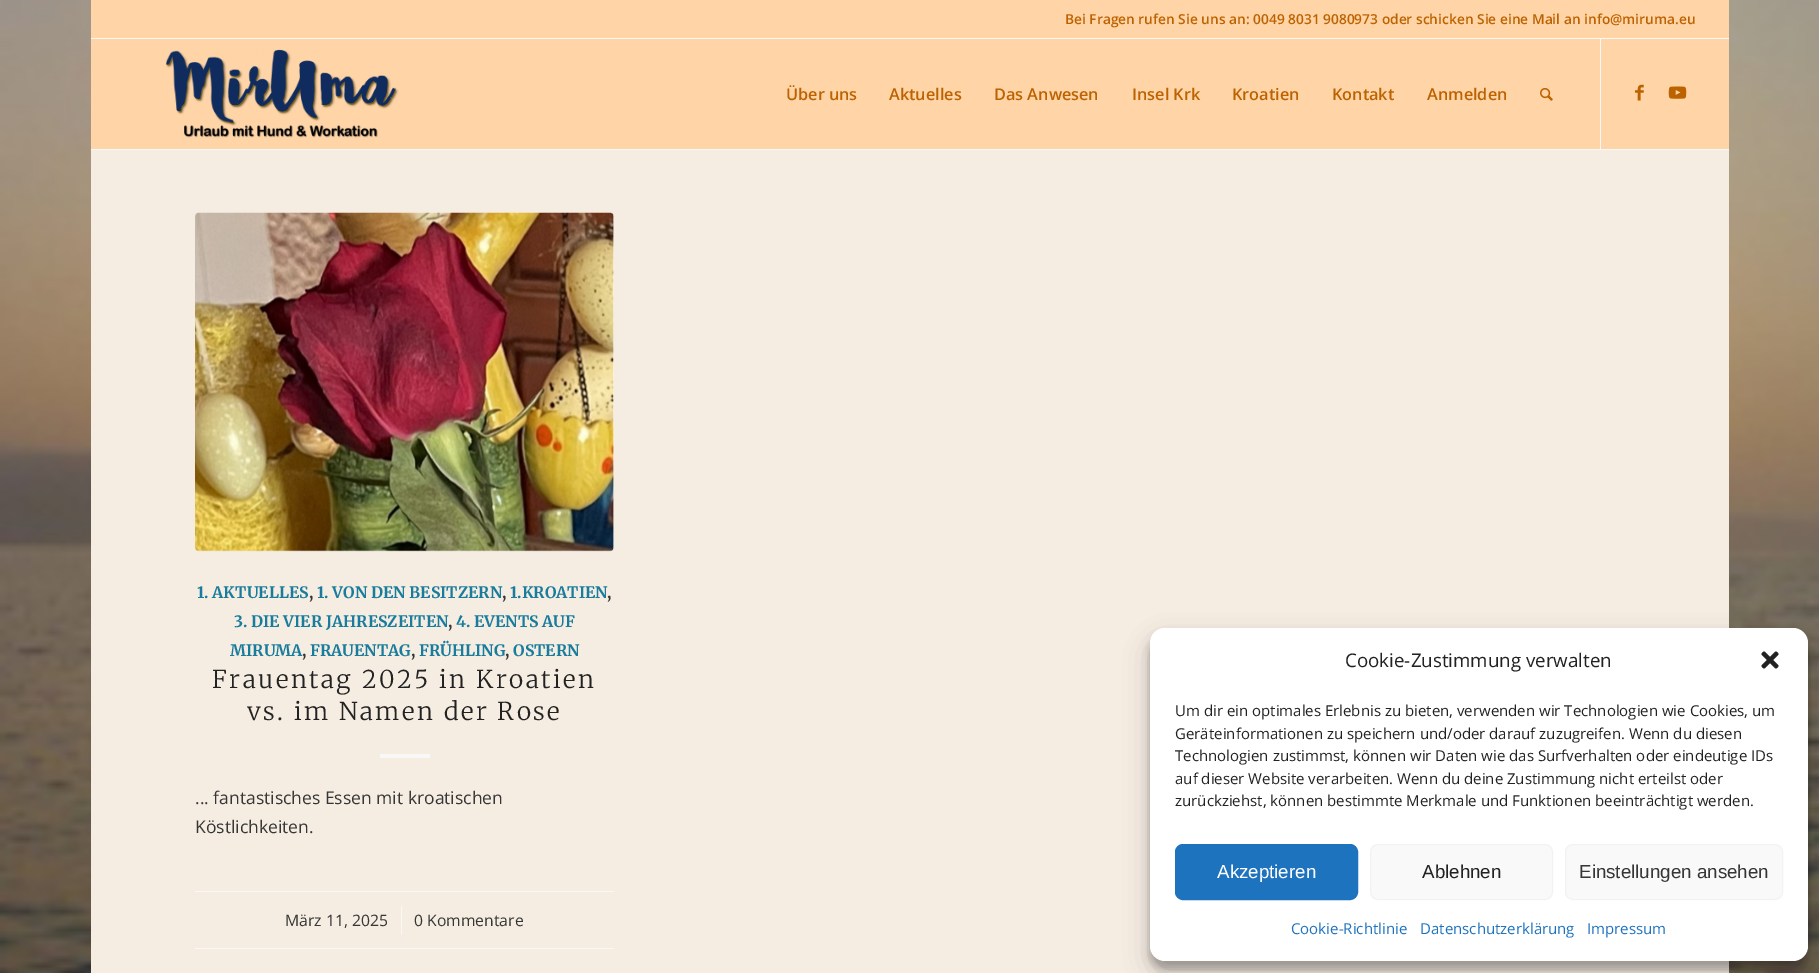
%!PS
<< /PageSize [1819 973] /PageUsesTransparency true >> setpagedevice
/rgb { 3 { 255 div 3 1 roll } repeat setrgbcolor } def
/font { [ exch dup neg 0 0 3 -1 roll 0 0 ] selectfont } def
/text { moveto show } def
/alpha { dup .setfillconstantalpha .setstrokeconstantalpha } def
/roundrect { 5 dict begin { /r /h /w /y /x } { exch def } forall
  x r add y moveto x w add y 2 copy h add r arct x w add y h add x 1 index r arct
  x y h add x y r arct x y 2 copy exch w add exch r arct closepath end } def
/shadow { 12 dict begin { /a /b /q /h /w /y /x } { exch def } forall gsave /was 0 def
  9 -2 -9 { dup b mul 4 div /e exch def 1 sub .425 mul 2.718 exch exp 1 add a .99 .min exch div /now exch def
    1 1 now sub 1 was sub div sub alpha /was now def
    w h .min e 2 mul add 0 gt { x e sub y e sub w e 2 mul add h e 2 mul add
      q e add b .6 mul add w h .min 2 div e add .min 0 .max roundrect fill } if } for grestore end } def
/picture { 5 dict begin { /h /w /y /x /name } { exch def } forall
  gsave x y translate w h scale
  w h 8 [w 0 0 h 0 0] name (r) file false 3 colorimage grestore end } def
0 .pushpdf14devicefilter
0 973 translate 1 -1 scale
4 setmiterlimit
255 255 255 rgb
0 0 1819 973 rectfill
(img_01.rgb) 0 0 1819 973 picture
255 213 168 rgb
91 0 1638 38 rectfill
248 248 248 rgb
91 38 1638 1 rectfill
91 149 1638 1 rectfill
255 213 168 rgb
91 39 1638 110 rectfill
(img_02.rgb) 166 49 233 89 picture
248 248 248 rgb
1600 39 1 110 rectfill
(img_03.rgb) 1540 88 13 13 picture
(img_04.rgb) 1635 84 9 17 picture
(img_05.rgb) 1668 86 19 13 picture
245 236 226 rgb
91 150 1638 823 rectfill
255 255 255 rgb
195 213 419 338 4 roundrect fill
(img_06.rgb) 195 212 419 340 picture
248 248 248 rgb
380 754 50 4 rectfill
195 891 419 1 rectfill
195 948 419 1 rectfill
401 906 1 29 rectfill
0 0 0 rgb
1150 635 658 334 15 4 0.23 shadow
1150 640 658 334 15 12.5 0.19 shadow
255 255 255 rgb
1150 628 658 333 15 roundrect fill
(img_07.rgb) 1761 651 18 18 picture
30 115 190 rgb
1175.5 844.5 182 55 7.5 roundrect gsave fill grestore
stroke
249 249 249 rgb
1370.5 844.5 182 55 7.5 roundrect gsave fill grestore
242 242 242 rgb
stroke
249 249 249 rgb
1565.5 844.5 217 55 7.5 roundrect gsave fill grestore
242 242 242 rgb
stroke
/OpenSans-SemiBold 13.75 font
189 98 0 rgb
(Bei Fragen rufen Sie uns an: 0049 8031 9080973 oder schicken Sie eine Mail an info@miruma.eu) 1065 24 text
/OpenSans-SemiBold 16.25 font
(Über uns) 786 100 text
(Aktuelles) 889 100 text
(Das Anwesen) 994 100 text
(Insel Krk) 1132 100 text
(Kroatien) 1232 100 text
(Kontakt) 1332 100 text
(Anmelden) 1427 100 text
/Merriweather-Bold 15.75 font
25 124 157 rgb
(1. AKTUELLES) 197 598 text
54 54 54 rgb
(,) 309 598 text
25 124 157 rgb
(1. VON DEN BESITZERN) 317 598 text
54 54 54 rgb
(,) 502 598 text
25 124 157 rgb
(1.KROATIEN) 510 598 text
54 54 54 rgb
(,) 607 598 text
25 124 157 rgb
(3. DIE VIER JAHRESZEITEN) 234 627 text
54 54 54 rgb
(,) 448 627 text
25 124 157 rgb
(4. EVENTS AUF) 456 627 text
(MIRUMA) 230 656 text
54 54 54 rgb
(,) 302 656 text
25 124 157 rgb
(FRAUENTAG) 310 656 text
54 54 54 rgb
(,) 411 656 text
25 124 157 rgb
(FRÜHLING) 419 656 text
54 54 54 rgb
(,) 505 656 text
25 124 157 rgb
(OSTERN) 513 656 text
/Merriweather-Light 24.5 font
34 34 34 rgb
212 688 moveto 2.5 0 (Frauentag 2025 in Kroatien) ashow
247 720 moveto 2.5 0 (vs. im Namen der Rose) ashow
/OpenSans-Regular 17.5 font
54 54 54 rgb
(... fantastisches Essen mit kroatischen) 195 804 text
(Köstlichkeiten.) 195 833 text
/OpenSans-Regular 15.75 font
(März 11, 2025) 285 926 text
(0 Kommentare) 414 926 text
/OpenSans-Regular 18.75 font
34 34 34 rgb
(Cookie-Zustimmung verwalten) 1345 667 text
/OpenSans-Regular 15 font
(Um dir ein optimales Erlebnis zu bieten, verwenden wir Technologien wie Cookies, um) 1175 716 text
(Geräteinformationen zu speichern und/oder darauf zuzugreifen. Wenn du diesen) 1175 739 text
(Technologien zustimmst, können wir Daten wie das Surfverhalten oder eindeutige IDs) 1175 761 text
(auf dieser Website verarbeiten. Wenn du deine Zustimmung nicht erteilst oder) 1175 784 text
(zurückziehst, können bestimmte Merkmale und Funktionen beeinträchtigt werden.) 1175 806 text
/LiberationSans-Regular 18.75 font
255 255 255 rgb
(Akzeptieren) 1217 878 text
34 34 34 rgb
(Ablehnen) 1422 878 text
54 54 54 rgb
(Einstellungen ansehen) 1579 878 text
/OpenSans-Regular 15 font
30 115 190 rgb
(Cookie-Richtlinie) 1291 934 text
(Datenschutzerklärung) 1420 934 text
(Impressum) 1587 934 text
.poppdf14devicefilter showpage
